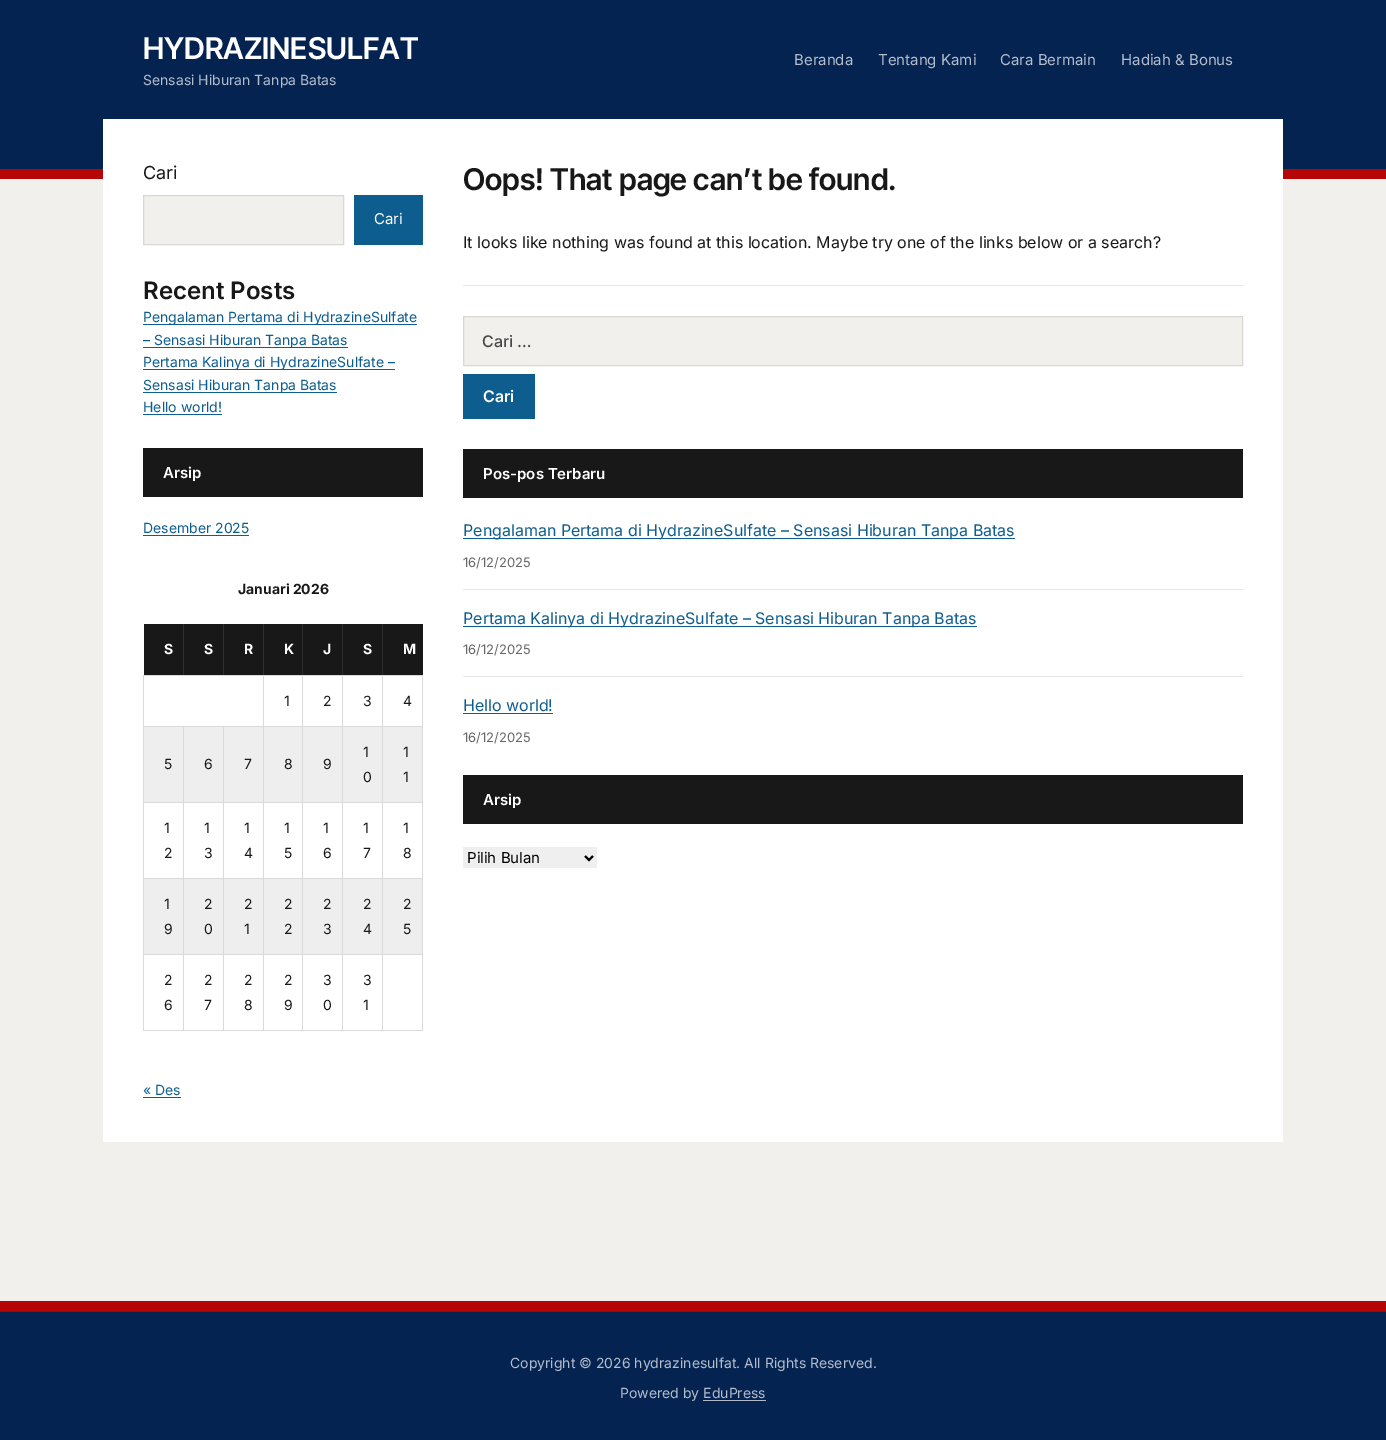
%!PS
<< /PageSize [1386 1440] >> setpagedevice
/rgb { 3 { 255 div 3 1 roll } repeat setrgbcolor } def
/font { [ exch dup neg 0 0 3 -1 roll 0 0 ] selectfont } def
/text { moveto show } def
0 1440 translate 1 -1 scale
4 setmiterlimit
242 240 237 rgb
0 0 1386 1440 rectfill
4 35 81 rgb
0 0 1386 169 rectfill
181 5 5 rgb
0 169 1386 10 rectfill
255 255 255 rgb
103 119 1180 1023 rectfill
242 240 237 rgb
143.5 195.5 moveto 200 0 rlineto 0 49 rlineto -200 0 rlineto closepath gsave fill grestore
218 216 213 rgb
stroke
13 93 143 rgb
354 195 69 50 rectfill
143 324 274 1 rectfill
143 347 205 1 rectfill
143 369 252 1 rectfill
143 392 194 1 rectfill
143 414 79 1 rectfill
24 24 24 rgb
143 448 280 49 rectfill
13 93 143 rgb
143 535 106 1 rectfill
24 24 24 rgb
144 624 39 51 rectfill
184 624 39 51 rectfill
47 47 47 rgb
183 624 1 51 rectfill
24 24 24 rgb
224 624 39 51 rectfill
47 47 47 rgb
223 624 1 51 rectfill
24 24 24 rgb
264 624 38 51 rectfill
47 47 47 rgb
263 624 1 51 rectfill
302 624 1 51 rectfill
24 24 24 rgb
303 624 39 51 rectfill
47 47 47 rgb
342 624 1 51 rectfill
24 24 24 rgb
343 624 39 51 rectfill
47 47 47 rgb
382 624 1 51 rectfill
24 24 24 rgb
383 624 40 51 rectfill
218 218 218 rgb
143 675 280 1 rectfill
222 222 222 rgb
183 675 1 1 rectfill
223 675 1 1 rectfill
218 218 218 rgb
422 675 1 356 rectfill
143 1030 280 1 rectfill
143 675 1 356 rectfill
143 726 280 1 rectfill
238 238 238 rgb
144 727 278 75 rectfill
218 218 218 rgb
143 802 280 1 rectfill
143 878 280 1 rectfill
238 238 238 rgb
144 879 278 75 rectfill
218 218 218 rgb
143 954 280 1 rectfill
263 675 1 356 rectfill
222 222 222 rgb
263 675 1 1 rectfill
218 218 218 rgb
302 675 1 356 rectfill
222 222 222 rgb
302 675 1 1 rectfill
218 218 218 rgb
342 675 1 356 rectfill
222 222 222 rgb
342 675 1 1 rectfill
218 218 218 rgb
382 675 1 356 rectfill
222 222 222 rgb
382 675 1 1 rectfill
218 218 218 rgb
183 726 1 305 rectfill
223 726 1 305 rectfill
13 93 143 rgb
143 1097 38 1 rectfill
230 230 230 rgb
463 285 780 1 rectfill
242 240 237 rgb
463.5 316.5 moveto 779 0 rlineto 0 49 rlineto -779 0 rlineto closepath gsave fill grestore
218 216 213 rgb
stroke
13 93 143 rgb
463 374 72 45 rectfill
24 24 24 rgb
463 449 780 49 rectfill
13 93 143 rgb
463 538 552 1 rectfill
230 230 230 rgb
463 589 780 1 rectfill
13 93 143 rgb
463 626 514 1 rectfill
230 230 230 rgb
463 676 780 1 rectfill
13 93 143 rgb
463 713 90 1 rectfill
24 24 24 rgb
463 775 780 49 rectfill
239 239 239 rgb
463 847 134 21 rectfill
0 0 0 rgb
2 setlinewidth
585 856 moveto 4 4 rlineto 4 -4 rlineto stroke
4 35 81 rgb
0 1312 1386 128 rectfill
181 5 5 rgb
0 1301 1386 10 rectfill
29 57 98 rgb
0 1311 1386 1 rectfill
/InterTight-SemiBold 30 font
255 255 255 rgb
(HYDRAZINESULFAT) 143 59 text
/Inter-Regular 14 font
180 189 203 rgb
(Sensasi Hiburan Tanpa Batas) 143 85 text
/Inter-Regular 15 font
(Beranda) 794 65 text
(Tentang Kami) 878 65 text
(Cara Bermain) 1000 65 text
(Hadiah & Bonus) 1121 65 text
/Inter-Regular 18 font
24 24 24 rgb
(Cari) 143 179 text
/Inter-Regular 15 font
255 255 255 rgb
(Cari) 374 224 text
/Inter-SemiBold 24 font
24 24 24 rgb
(Recent Posts) 143 299 text
/Inter-Regular 14 font
13 93 143 rgb
(Pengalaman Pertama di HydrazineSulfate) 143 322 text
(– Sensasi Hiburan Tanpa Batas) 143 345 text
(Pertama Kalinya di HydrazineSulfate –) 143 367 text
(Sensasi Hiburan Tanpa Batas) 143 390 text
(Hello world!) 143 412 text
/Inter-SemiBold 15 font
255 255 255 rgb
(Arsip) 163 478 text
/Inter-Regular 14 font
13 93 143 rgb
(Desember 2025) 143 533 text
/Inter-Bold 14 font
24 24 24 rgb
(Januari 2026) 238 594 text
255 255 255 rgb
(S) 164 654 text
(S) 204 654 text
(R) 244 654 text
(K) 284 654 text
(J) 323 654 text
(S) 363 654 text
(M) 403 654 text
/Inter-Regular 14 font
24 24 24 rgb
(1) 284 706 text
(2) 323 706 text
(3) 363 706 text
(4) 403 706 text
(5) 164 769 text
(6) 204 769 text
(7) 244 769 text
(8) 284 769 text
(9) 323 769 text
(1) 363 757 text
(0) 363 782 text
(1) 403 757 text
(1) 403 782 text
(1) 164 833 text
(2) 164 858 text
(1) 204 833 text
(3) 204 858 text
(1) 244 833 text
(4) 244 858 text
(1) 284 833 text
(5) 284 858 text
(1) 323 833 text
(6) 323 858 text
(1) 363 833 text
(7) 363 858 text
(1) 403 833 text
(8) 403 858 text
(1) 164 909 text
(9) 164 934 text
(2) 204 909 text
(0) 204 934 text
(2) 244 909 text
(1) 244 934 text
(2) 284 909 text
(2) 284 934 text
(2) 323 909 text
(3) 323 934 text
(2) 363 909 text
(4) 363 934 text
(2) 403 909 text
(5) 403 934 text
(2) 164 985 text
(6) 164 1010 text
(2) 204 985 text
(7) 204 1010 text
(2) 244 985 text
(8) 244 1010 text
(2) 284 985 text
(9) 284 1010 text
(3) 323 985 text
(0) 323 1010 text
(3) 363 985 text
(1) 363 1010 text
13 93 143 rgb
(« Des) 143 1095 text
/InterTight-SemiBold 30 font
24 24 24 rgb
(Oops! That page can’t be found.) 463 190 text
/Inter-Regular 16 font
(It looks like nothing was found at this location. Maybe try one of the links below or a search?) 463 248 text
/Inter-Medium 16 font
72 72 72 rgb
(Cari …) 482 347 text
/Inter-SemiBold 16 font
255 255 255 rgb
(Cari) 483 402 text
/Inter-SemiBold 15 font
(Pos-pos Terbaru) 483 479 text
/Inter-Regular 16 font
13 93 143 rgb
(Pengalaman Pertama di HydrazineSulfate – Sensasi Hiburan Tanpa Batas) 463 536 text
/Inter-Regular 13 font
102 102 102 rgb
(16/12/2025) 463 567 text
/Inter-Regular 16 font
13 93 143 rgb
(Pertama Kalinya di HydrazineSulfate – Sensasi Hiburan Tanpa Batas) 463 624 text
/Inter-Regular 13 font
102 102 102 rgb
(16/12/2025) 463 654 text
/Inter-Regular 16 font
13 93 143 rgb
(Hello world!) 463 711 text
/Inter-Regular 13 font
102 102 102 rgb
(16/12/2025) 463 742 text
/Inter-SemiBold 15 font
255 255 255 rgb
(Arsip) 483 805 text
/Inter-Regular 15 font
0 0 0 rgb
(Pilih Bulan) 467 863 text
/Inter-Regular 14 font
180 189 203 rgb
(Copyright © 2026 hydrazinesulfat. All Rights Reserved.) 510 1368 text
(Powered by EduPress) 620 1398 text
175 185 199 rgb
703 1400 63 1 rectfill
showpage
